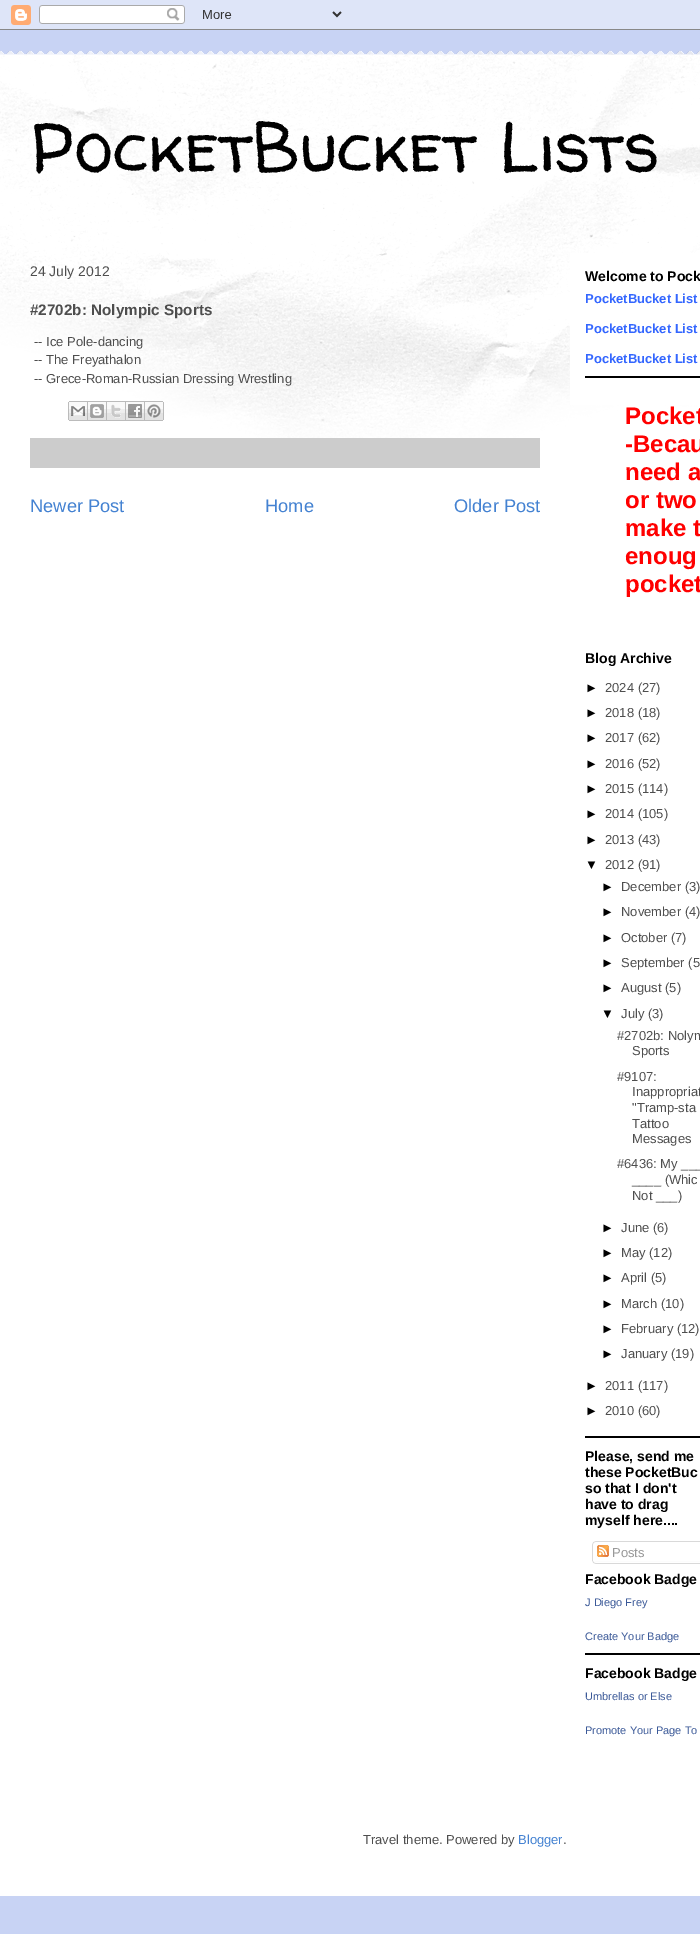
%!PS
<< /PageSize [700 1934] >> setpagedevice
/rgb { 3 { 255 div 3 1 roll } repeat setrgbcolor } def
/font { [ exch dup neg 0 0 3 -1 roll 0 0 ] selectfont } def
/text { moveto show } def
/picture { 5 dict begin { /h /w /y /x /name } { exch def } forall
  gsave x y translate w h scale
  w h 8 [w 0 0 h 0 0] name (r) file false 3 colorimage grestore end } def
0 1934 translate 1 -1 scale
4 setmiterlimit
200 211 244 rgb
0 0 700 1934 rectfill
(img_01.rgb) 0 0 700 30 picture
(img_02.rgb) 0 51 700 4 picture
255 255 255 rgb
0 55 700 1841 rectfill
(img_03.rgb) 0 55 700 383 picture
570 253 130 152 rectfill
(img_04.rgb) 68 401 20 20 picture
(img_05.rgb) 88 401 19 20 picture
(img_06.rgb) 107 401 19 20 picture
(img_07.rgb) 126 401 19 20 picture
(img_08.rgb) 145 401 19 20 picture
204 204 204 rgb
30 438 510 30 rectfill
0 0 0 rgb
585 376 115 2 rectfill
585 1436 115 2 rectfill
(img_09.rgb) 592 1541 108 20 picture
(img_10.rgb) 597 1545 12 12 picture
(img_11.rgb) 592 1561 108 3 picture
585 1653 115 2 rectfill
/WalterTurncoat-Regular 70 font
(PocketBucket Lists) 30 172 text
/LiberationSans-Regular 14 font
78 78 78 rgb
(24 July 2012) 30 276 text
/LiberationSans-Bold 15.25 font
(#2702b: Nolympic Sports) 30 315 text
/LiberationSans-Regular 13 font
(-- Ice Pole-dancing) 34 346 text
(-- The Freyathalon) 34 364 text
(-- Grece-Roman-Russian Dressing Wrestling) 34 383 text
/LiberationSans-Regular 18.25 font
68 130 210 rgb
(Newer Post) 30 512 text
(Home) 265 512 text
(Older Post) 454 512 text
/LiberationSans-Bold 14 font
0 0 0 rgb
(Welcome to Pock) 585 281 text
/LiberationSans-Bold 13 font
51 102 255 rgb
(PocketBucket List) 585 303 text
(PocketBucket List) 585 333 text
(PocketBucket List) 585 363 text
/LiberationSans-Bold 24 font
255 0 0 rgb
(Pocket) 625 424 text
(-Becau) 625 452 text
(need a) 625 480 text
(or two) 625 508 text
(make t) 625 536 text
(enoug) 625 564 text
(pocket) 625 592 text
/LiberationSans-Bold 14 font
0 0 0 rgb
(Blog Archive) 585 663 text
/LiberationSans-Regular 13 font
(►) 585 692 text
78 78 78 rgb
(2024 \(27\)) 605 692 text
0 0 0 rgb
(►) 585 717 text
78 78 78 rgb
(2018 \(18\)) 605 717 text
0 0 0 rgb
(►) 585 742 text
78 78 78 rgb
(2017 \(62\)) 605 742 text
0 0 0 rgb
(►) 585 768 text
78 78 78 rgb
(2016 \(52\)) 605 768 text
0 0 0 rgb
(►) 585 793 text
78 78 78 rgb
(2015 \(114\)) 605 793 text
0 0 0 rgb
(►) 585 818 text
78 78 78 rgb
(2014 \(105\)) 605 818 text
0 0 0 rgb
(►) 585 844 text
78 78 78 rgb
(2013 \(43\)) 605 844 text
0 0 0 rgb
(▼) 585 869 text
78 78 78 rgb
(2012 \(91\)) 605 869 text
0 0 0 rgb
(►) 601 891 text
78 78 78 rgb
(December \(3\)) 621 891 text
0 0 0 rgb
(►) 601 916 text
78 78 78 rgb
(November \(4\)) 621 916 text
0 0 0 rgb
(►) 601 942 text
78 78 78 rgb
(October \(7\)) 621 942 text
0 0 0 rgb
(►) 601 967 text
78 78 78 rgb
(September \(5) 621 967 text
0 0 0 rgb
(►) 601 992 text
78 78 78 rgb
(August \(5\)) 621 992 text
0 0 0 rgb
(▼) 601 1018 text
78 78 78 rgb
(July \(3\)) 621 1018 text
(#2702b: Nolym) 617 1040 text
(Sports) 632 1055 text
(#9107:) 617 1081 text
(Inappropriat) 632 1096 text
("Tramp-sta) 632 1112 text
(Tattoo) 632 1128 text
(Messages) 632 1143 text
(#6436: My ___) 617 1168 text
(____ \(Whic) 632 1184 text
(Not ___\)) 632 1200 text
0 0 0 rgb
(►) 601 1232 text
78 78 78 rgb
(June \(6\)) 621 1232 text
0 0 0 rgb
(►) 601 1257 text
78 78 78 rgb
(May \(12\)) 621 1257 text
0 0 0 rgb
(►) 601 1282 text
78 78 78 rgb
(April \(5\)) 621 1282 text
0 0 0 rgb
(►) 601 1308 text
78 78 78 rgb
(March \(10\)) 621 1308 text
0 0 0 rgb
(►) 601 1333 text
78 78 78 rgb
(February \(12\)) 621 1333 text
0 0 0 rgb
(►) 601 1358 text
78 78 78 rgb
(January \(19\)) 621 1358 text
0 0 0 rgb
(►) 585 1390 text
78 78 78 rgb
(2011 \(117\)) 605 1390 text
0 0 0 rgb
(►) 585 1415 text
78 78 78 rgb
(2010 \(60\)) 605 1415 text
/LiberationSans-Bold 14 font
0 0 0 rgb
(Please, send me) 585 1461 text
(these PocketBuc) 585 1477 text
(so that I don't) 585 1493 text
(have to drag) 585 1509 text
(myself here....) 585 1525 text
/LiberationSans-Regular 13 font
153 153 153 rgb
(Posts) 612 1557 text
/LiberationSans-Bold 14 font
0 0 0 rgb
(Facebook Badge) 585 1584 text
/LiberationSans-Regular 11 font
59 89 152 rgb
(J Diego Frey) 585 1606 text
(Create Your Badge) 585 1640 text
/LiberationSans-Bold 14 font
0 0 0 rgb
(Facebook Badge) 585 1678 text
/LiberationSans-Regular 11 font
59 89 152 rgb
(Umbrellas or Else) 585 1700 text
(Promote Your Page To) 585 1734 text
/LiberationSans-Regular 13 font
78 78 78 rgb
(Travel theme. Powered by) 363 1844 text
68 130 210 rgb
(Blogger) 518 1844 text
78 78 78 rgb
(.) 563 1844 text
showpage
